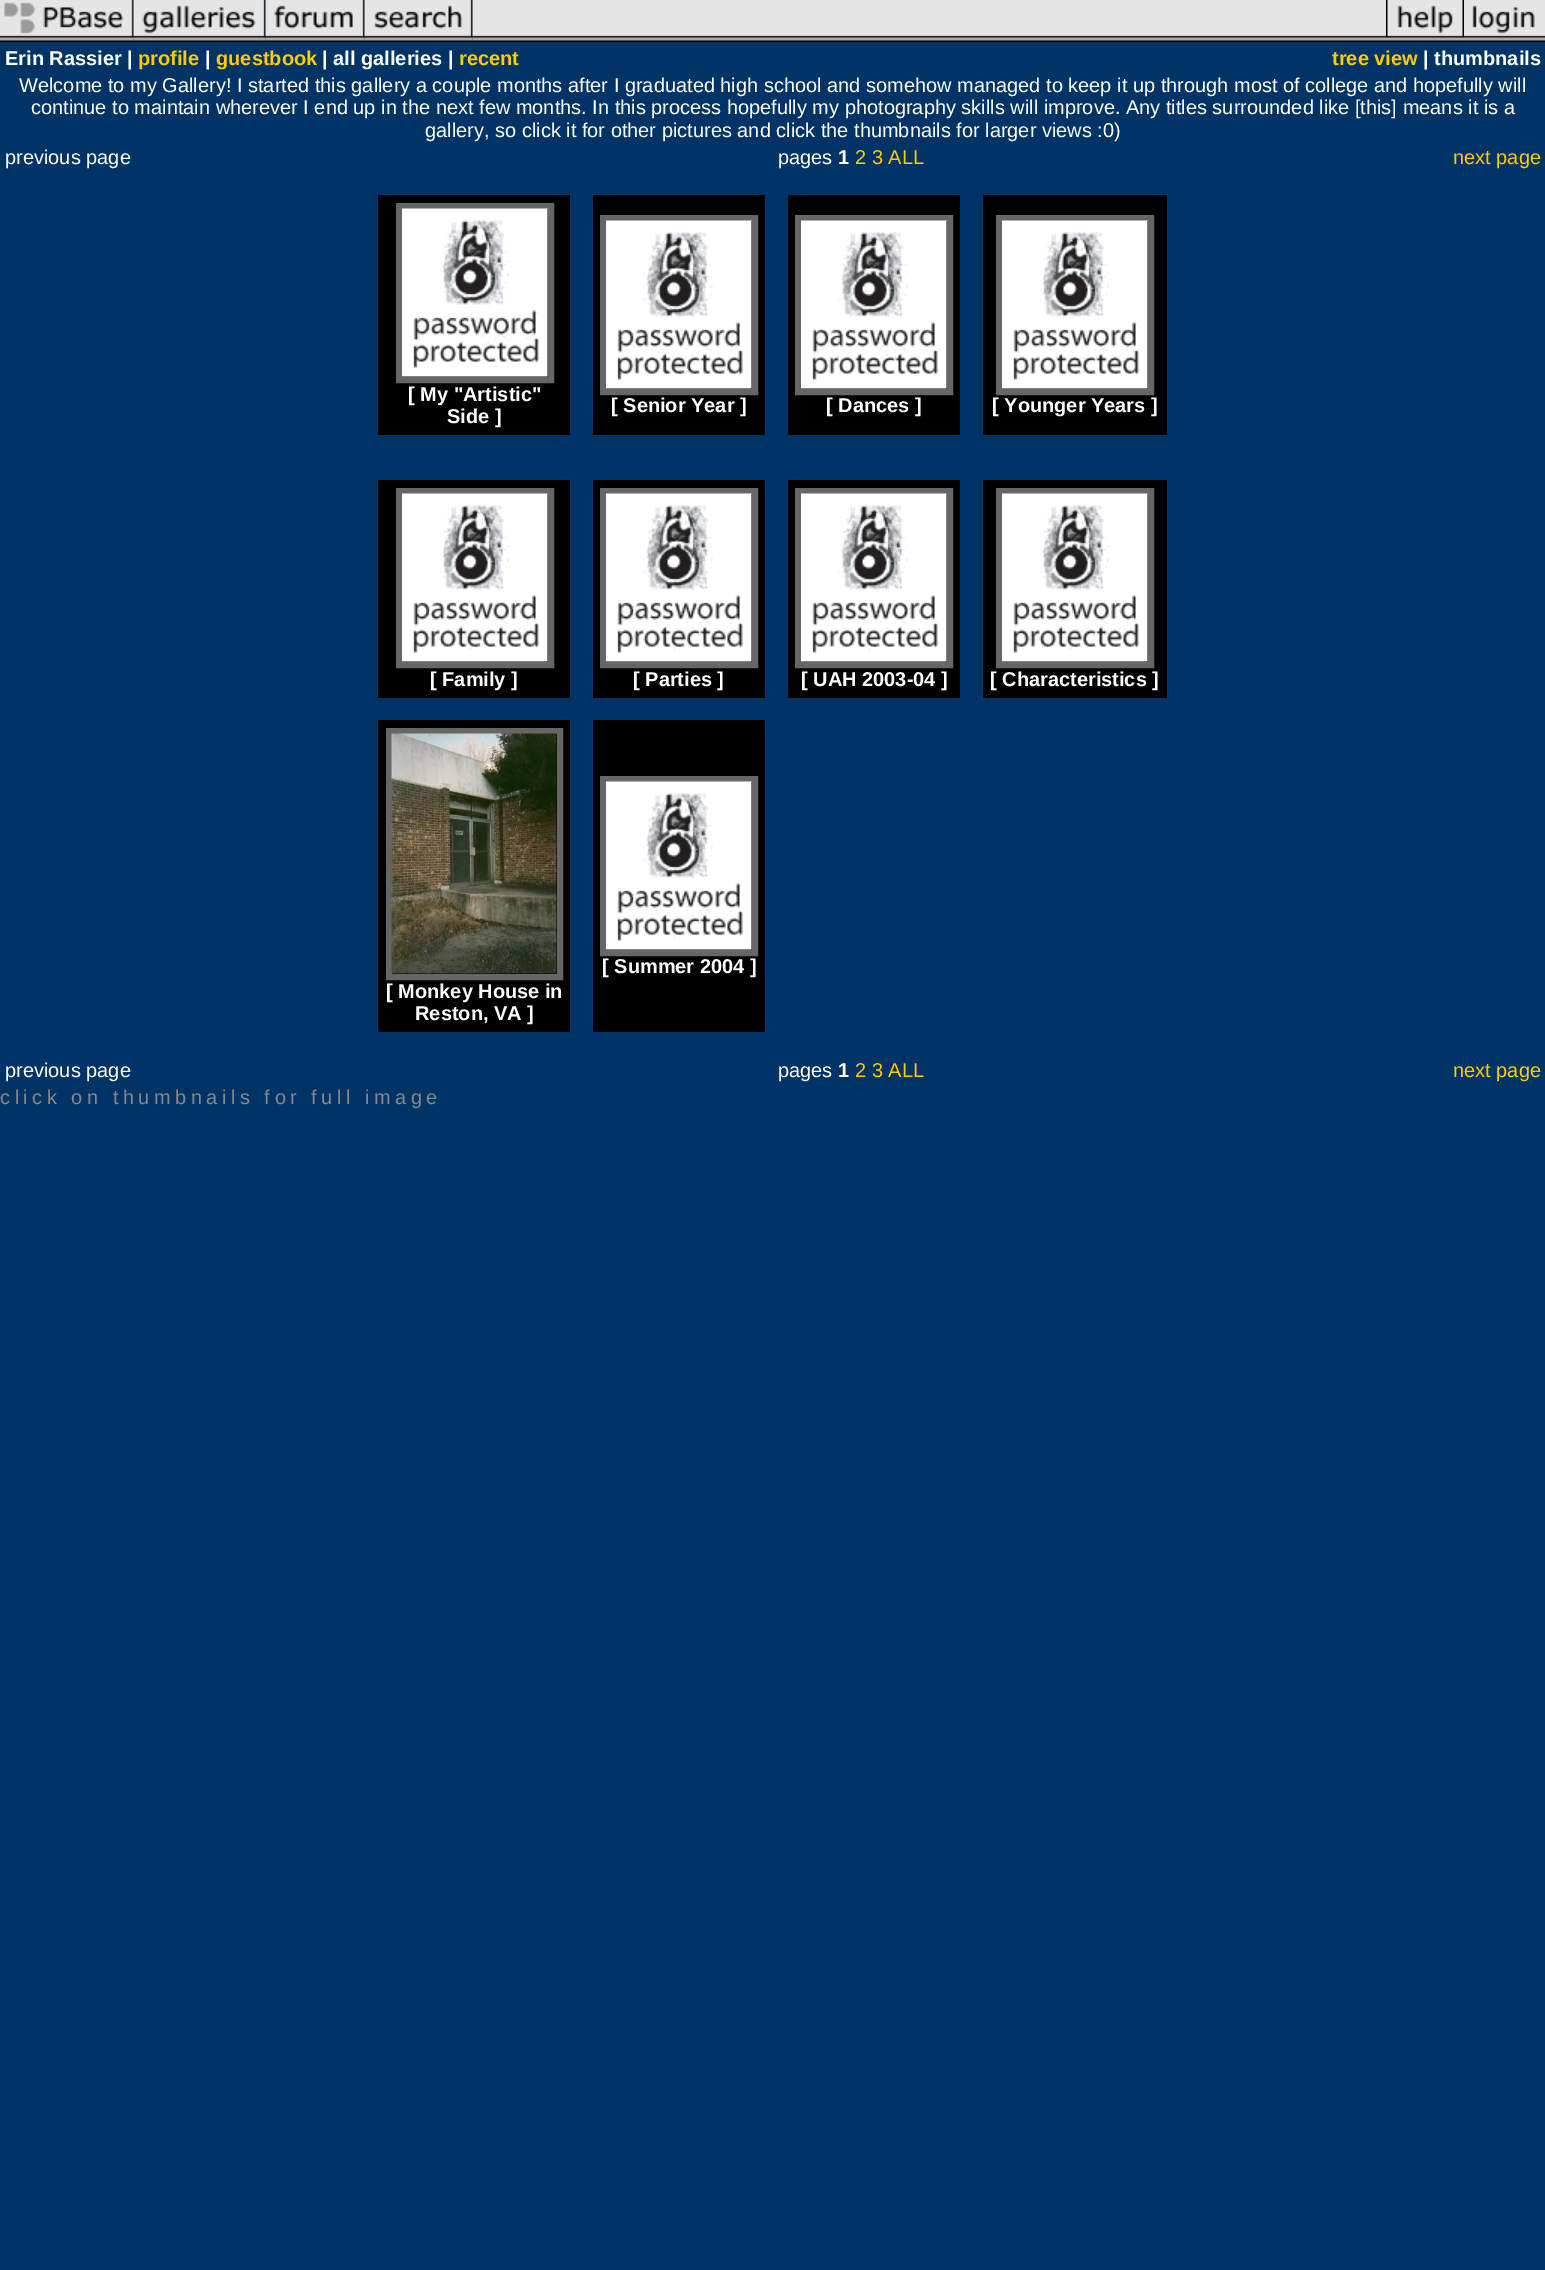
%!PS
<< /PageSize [1545 2270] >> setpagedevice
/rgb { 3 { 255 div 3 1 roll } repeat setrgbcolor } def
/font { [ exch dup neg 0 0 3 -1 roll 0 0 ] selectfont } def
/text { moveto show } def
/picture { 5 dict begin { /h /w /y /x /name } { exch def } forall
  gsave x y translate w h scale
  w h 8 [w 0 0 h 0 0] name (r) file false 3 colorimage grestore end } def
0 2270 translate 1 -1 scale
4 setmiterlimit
0 51 102 rgb
0 0 1545 2270 rectfill
(img_01.rgb) 0 0 134 42 picture
(img_02.rgb) 133 0 133 42 picture
(img_03.rgb) 265 0 100 42 picture
(img_04.rgb) 364 0 109 42 picture
(img_05.rgb) 472 0 914 42 picture
(img_06.rgb) 1386 0 78 42 picture
(img_07.rgb) 1464 0 81 42 picture
0 0 0 rgb
378 195 192 240 rectfill
102 102 102 rgb
6 setlinewidth
399 206 152 174 rectstroke
(img_08.rgb) 402 208 146 169 picture
0 0 0 rgb
593 195 172 240 rectfill
102 102 102 rgb
603 218 152 174 rectstroke
(img_09.rgb) 606 220 146 169 picture
0 0 0 rgb
788 195 172 240 rectfill
102 102 102 rgb
798 218 152 174 rectstroke
(img_09.rgb) 801 220 146 169 picture
0 0 0 rgb
983 195 184 240 rectfill
102 102 102 rgb
999 218 152 174 rectstroke
(img_09.rgb) 1002 220 146 169 picture
0 0 0 rgb
378 480 192 218 rectfill
102 102 102 rgb
399 491 152 174 rectstroke
(img_08.rgb) 402 493 146 169 picture
0 0 0 rgb
593 480 172 218 rectfill
102 102 102 rgb
603 491 152 174 rectstroke
(img_09.rgb) 606 493 146 169 picture
0 0 0 rgb
788 480 172 218 rectfill
102 102 102 rgb
798 491 152 174 rectstroke
(img_09.rgb) 801 493 146 169 picture
0 0 0 rgb
983 480 184 218 rectfill
102 102 102 rgb
999 491 152 174 rectstroke
(img_09.rgb) 1002 493 146 169 picture
0 0 0 rgb
593 720 172 312 rectfill
102 102 102 rgb
603 779 152 174 rectstroke
(img_09.rgb) 606 781 146 169 picture
0 0 0 rgb
378 720 192 312 rectfill
102 102 102 rgb
389 731 171 246 rectstroke
(img_10.rgb) 391 733 166 241 picture
/LiberationSans-Bold 20 font
255 255 255 rgb
(Erin Rassier |) 5 65 text
255 204 0 rgb
(profile) 138 65 text
255 255 255 rgb
(|) 205 65 text
255 204 0 rgb
(guestbook) 216 65 text
255 255 255 rgb
(| all galleries |) 322 65 text
255 204 0 rgb
(recent) 459 65 text
(tree view) 1332 65 text
255 255 255 rgb
(| thumbnails) 1423 65 text
/LiberationSans-Regular 20 font
(Welcome to my Gallery! I started this gallery a couple months after I graduated high school and somehow managed to keep it up through most of college and hopefully will) 19 92 text
(continue to maintain wherever I end up in the next few months. In this process hopefully my photography skills will improve. Any titles surrounded like [this] means it is a) 31 114 text
(gallery, so click it for other pictures and click the thumbnails for larger views :0\)) 425 137 text
(previous page) 5 164 text
(pages) 778 164 text
/LiberationSans-Bold 20 font
(1) 838 164 text
/LiberationSans-Regular 20 font
255 204 0 rgb
(2 3 ALL) 855 164 text
(next page) 1453 164 text
/LiberationSans-Bold 20 font
255 255 255 rgb
([ My "Artistic") 408 401 text
(Side ]) 447 423 text
([ Senior Year ]) 611 412 text
([ Dances ]) 826 412 text
([ Younger Years ]) 992 412 text
([ Family ]) 430 686 text
([ Parties ]) 633 686 text
([ UAH 2003-04 ]) 801 686 text
([ Characteristics ]) 990 686 text
([ Summer 2004 ]) 602 973 text
([ Monkey House in) 386 998 text
(Reston, VA ]) 415 1020 text
/LiberationSans-Regular 20 font
(previous page) 5 1077 text
(pages) 778 1077 text
/LiberationSans-Bold 20 font
(1) 838 1077 text
/LiberationSans-Regular 20 font
255 204 0 rgb
(2 3 ALL) 855 1077 text
(next page) 1453 1077 text
136 136 136 rgb
0 1104 moveto 4.5 0 (click on thumbnails for full image) ashow
showpage
